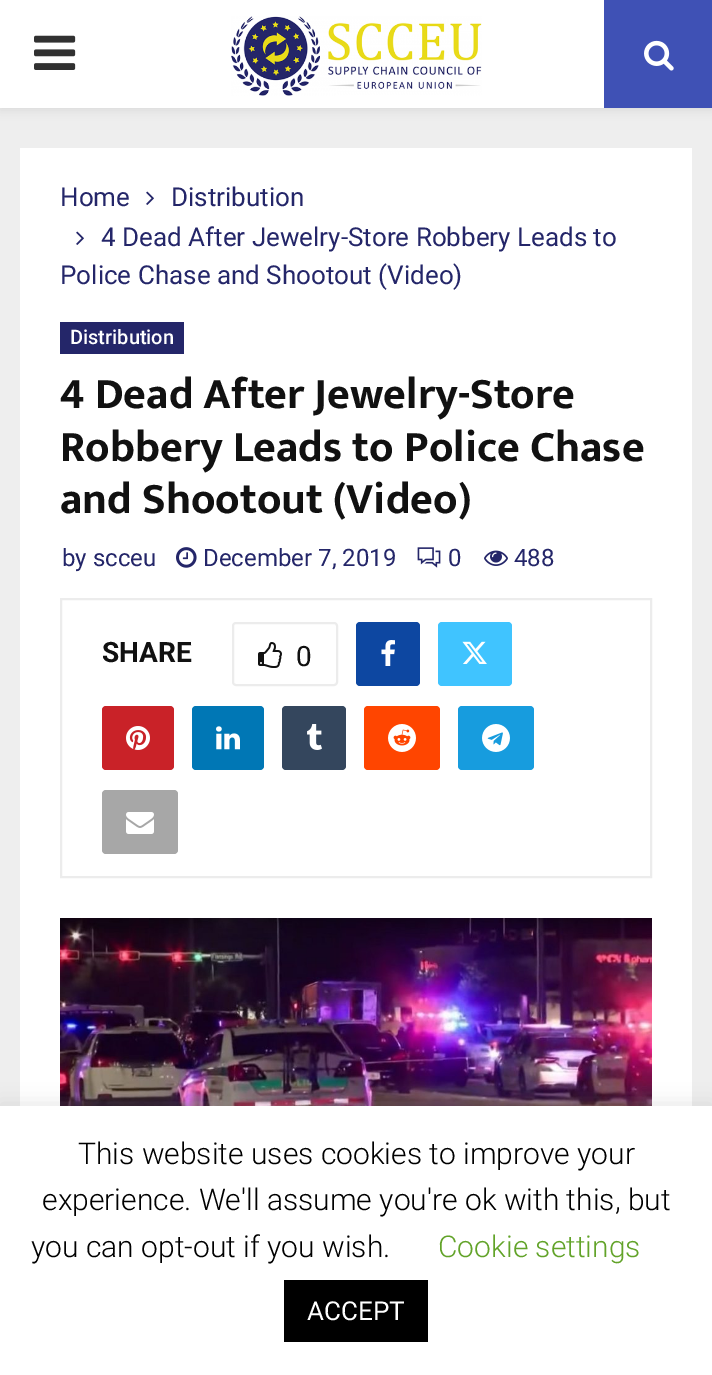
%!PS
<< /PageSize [712 1375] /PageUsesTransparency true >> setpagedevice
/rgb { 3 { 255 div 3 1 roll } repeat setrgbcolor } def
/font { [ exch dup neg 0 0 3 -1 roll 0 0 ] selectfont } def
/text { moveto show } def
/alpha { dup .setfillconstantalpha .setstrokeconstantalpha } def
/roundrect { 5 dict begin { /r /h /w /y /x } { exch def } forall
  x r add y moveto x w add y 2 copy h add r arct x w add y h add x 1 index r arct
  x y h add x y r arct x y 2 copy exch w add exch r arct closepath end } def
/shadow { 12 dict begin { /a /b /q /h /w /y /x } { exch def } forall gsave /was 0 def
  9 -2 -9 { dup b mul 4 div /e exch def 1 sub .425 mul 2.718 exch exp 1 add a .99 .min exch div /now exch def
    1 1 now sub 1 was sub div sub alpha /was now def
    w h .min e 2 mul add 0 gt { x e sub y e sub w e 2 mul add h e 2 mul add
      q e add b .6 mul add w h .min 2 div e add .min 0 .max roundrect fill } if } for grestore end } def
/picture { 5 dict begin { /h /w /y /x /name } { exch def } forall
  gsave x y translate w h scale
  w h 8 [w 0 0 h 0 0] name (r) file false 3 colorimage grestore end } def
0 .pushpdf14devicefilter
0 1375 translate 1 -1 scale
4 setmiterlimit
238 238 238 rgb
0 0 712 1375 rectfill
190 190 190 rgb
0 2 712 108 0 5 0.46 shadow
255 255 255 rgb
0 0 604 108 rectfill
(img_01.rgb) 34 35 42 35 picture
(img_02.rgb) 231 16 251 80 picture
63 81 181 rgb
604 0 108 108 rectfill
(img_03.rgb) 644 40 30 31 picture
255 255 255 rgb
20 148 672 958 rectfill
(img_04.rgb) 146 191 8 14 picture
(img_04.rgb) 76 231 8 14 picture
36 38 105 rgb
60 322 124 32 rectfill
(img_05.rgb) 176 547 21 21 picture
(img_06.rgb) 417 547 24 21 picture
(img_07.rgb) 484 550 24 16 picture
236 236 236 rgb
2 setlinewidth
61 599 590 278 rectstroke
233 623 104 62 3 roundrect stroke
(img_08.rgb) 258 642 24 26 picture
13 71 161 rgb
356 622 64 64 4 roundrect fill
(img_09.rgb) 381 640 14 26 picture
64 196 255 rgb
438 622 74 64 4 roundrect fill
(img_10.rgb) 462 641 25 23 picture
201 34 40 rgb
102 706 72 64 4 roundrect fill
(img_11.rgb) 126 726 24 24 picture
0 119 181 rgb
192 706 72 64 4 roundrect fill
(img_12.rgb) 216 726 24 24 picture
52 70 93 rgb
282 706 64 64 4 roundrect fill
(img_13.rgb) 307 724 15 26 picture
255 69 0 rgb
364 706 76 64 4 roundrect fill
(img_14.rgb) 388 724 28 28 picture
23 156 222 rgb
458 706 76 64 4 roundrect fill
(img_15.rgb) 482 724 28 28 picture
167 167 167 rgb
102 790 76 64 4 roundrect fill
(img_16.rgb) 126 812 28 22 picture
(img_17.rgb) 60 918 592 188 picture
172 171 171 rgb
0 1104 712 270 0 10 0.3 shadow
255 255 255 rgb
0 1106 712 269 rectfill
0 0 0 rgb
284 1280 144 62 rectfill
/Roboto-Regular 26 font
36 38 105 rgb
(Home) 60 206 text
(Distribution) 171 206 text
(4 Dead After Jewelry-Store Robbery Leads to) 101 246 text
(Police Chase and Shootout \(Video\)) 60 284 text
/Roboto-Medium 20 font
255 255 255 rgb
(Distribution) 70 344 text
/MuktaVaani-Bold 44 font
17 17 17 rgb
(4 Dead After Jewelry-Store) 60 408 text
(Robbery Leads to Police Chase) 60 461 text
(and Shootout \(Video\)) 60 513 text
/Roboto-Regular 24 font
36 38 105 rgb
(by scceu) 62 566 text
(December 7, 2019) 203 566 text
(0) 448 566 text
(488) 514 566 text
/Roboto-Bold 28 font
17 17 17 rgb
(SHARE) 102 662 text
/Roboto-Regular 28 font
(0) 296 666 text
/Roboto-Light 30 font
0 0 0 rgb
(This website uses cookies to improve your) 78 1164 text
(experience. We'll assume you're ok with this, but) 42 1210 text
(you can opt-out if you wish.) 31 1257 text
98 163 41 rgb
(Cookie settings) 438 1257 text
/Roboto-Regular 26 font
255 255 255 rgb
(ACCEPT) 307 1320 text
.poppdf14devicefilter showpage
